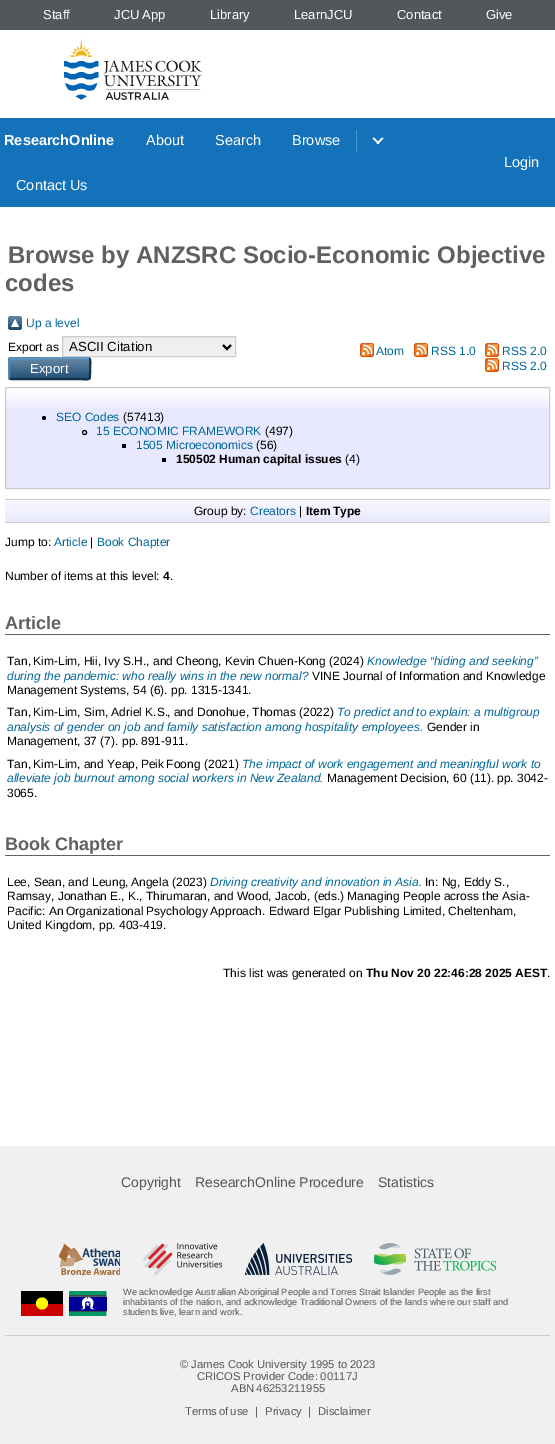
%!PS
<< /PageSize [555 1444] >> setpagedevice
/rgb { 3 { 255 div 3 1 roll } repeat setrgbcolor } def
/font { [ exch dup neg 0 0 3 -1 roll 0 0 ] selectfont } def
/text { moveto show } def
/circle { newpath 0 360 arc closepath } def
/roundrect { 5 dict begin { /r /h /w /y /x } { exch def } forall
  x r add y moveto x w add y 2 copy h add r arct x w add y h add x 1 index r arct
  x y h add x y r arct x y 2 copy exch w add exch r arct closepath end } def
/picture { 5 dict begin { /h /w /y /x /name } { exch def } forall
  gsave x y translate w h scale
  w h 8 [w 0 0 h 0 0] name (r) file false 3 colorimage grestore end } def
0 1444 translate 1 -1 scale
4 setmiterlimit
255 255 255 rgb
0 0 555 1444 rectfill
83 86 90 rgb
0 0 555 30 rectfill
(img_01.rgb) 64 38 138 62 picture
19 114 185 rgb
0 118 555 89 rectfill
78 149 203 rgb
356 130 1 22 rectfill
255 255 255 rgb
383.5 138.5 moveto -5.5 5.5 rlineto -1.5 -1 rlineto 5.5 -5.5 rlineto closepath fill
379.5 143 moveto -1.5 1 rlineto -5.5 -5.5 rlineto 1.5 -1 rlineto closepath fill
(img_02.rgb) 8 316 14 14 picture
239 239 239 rgb
62.5 336.5 moveto 173 0 rlineto 0 20 rlineto -173 0 rlineto closepath gsave fill grestore
204 204 204 rgb
stroke
0 0 0 rgb
2 setlinewidth
223 345 moveto 4 4 rlineto 4 -4 rlineto stroke
31 79 118 rgb
8 357 83 23 3 roundrect fill
(img_03.rgb) 8 359 83 19 picture
91 151 199 rgb
9.5 358.5 moveto 65.5 -0.5 rlineto 13 0 rlineto 1.5 0.5 rlineto stroke
19 50 74 rgb
89.5 358.5 moveto 1.5 1.5 0.5 8 0.5 10 rcurveto 0 14 1.5 10.5 -15 10.5 rcurveto -64 0 rlineto -1.5 -0.5 rlineto stroke
82 135 179 rgb
9.5 378.5 moveto -0.5 -0.5 -0.5 -1 -0.5 -1.5 rcurveto 0 -17 rlineto 0 -0.5 0 -1 0.5 -1.5 rcurveto stroke
(img_04.rgb) 360 343 14 14 picture
(img_04.rgb) 414 343 14 14 picture
(img_04.rgb) 485 343 14 14 picture
(img_04.rgb) 485 358 14 14 picture
232 232 255 rgb
6 389 543 99 rectfill
(img_05.rgb) 6 388 543 20 picture
204 204 204 rgb
1 setlinewidth
5.5 387.5 544 101 rectstroke
0 0 0 rgb
44 418 2 circle fill
84.5 432.5 2 circle stroke
122 444 4 4 rectfill
162 458 4 4 rectfill
232 232 255 rgb
5 500 545 22 rectfill
(img_06.rgb) 5 500 545 18 picture
204 204 204 rgb
5 499 545 1 rectfill
5 522 545 1 rectfill
96 96 96 rgb
5 634 545 1 rectfill
5 855 545 1 rectfill
240 240 240 rgb
0 1146 555 298 rectfill
(img_07.rgb) 59 1243 61 32 picture
(img_08.rgb) 143 1243 79 32 picture
(img_09.rgb) 245 1243 107 32 picture
(img_10.rgb) 374 1243 122 32 picture
0 0 0 rgb
21 1291 42 13 rectfill
204 0 0 rgb
21 1304 42 12 rectfill
255 255 0 rgb
42 1303.5 6 circle fill
(img_11.rgb) 69 1291 38 25 picture
204 204 204 rgb
5 1335 545 1 rectfill
/LiberationSans-Regular 13 font
255 255 255 rgb
(Staff) 43 19 text
114 19 moveto -1 0 32 (JCU App) widthshow
(Library) 210 19 text
(LearnJCU) 294 19 text
(Contact) 397 19 text
(Give) 486 19 text
/LiberationSans-Bold 14.5 font
(ResearchOnline) 4 145 text
/LiberationSans-Regular 14.5 font
(About) 146 145 text
(Search) 215 145 text
(Browse) 292 145 text
(Contact Us) 16 190 text
(Login) 504 167 text
/LiberationSans-Bold 24 font
96 96 96 rgb
(Browse by ANZSRC Socio-Economic Objective) 8 263 text
(codes) 5 291 text
/LiberationSans-Regular 12 font
0 102 153 rgb
(Up a level) 26 327 text
0 0 0 rgb
(Export as) 8 351 text
/LiberationSans-Regular 13.25 font
(ASCII Citation) 69 351 text
255 255 255 rgb
(Export) 30 373 text
/LiberationSans-Regular 12 font
0 102 153 rgb
(Atom) 376 355 text
(RSS 1.0) 431 355 text
(RSS 2.0) 502 355 text
(RSS 2.0) 502 370 text
(SEO Codes) 56 421 text
0 0 0 rgb
(\(57413\)) 123 421 text
0 102 153 rgb
(15 ECONOMIC FRAMEWORK) 96 435 text
0 0 0 rgb
(\(497\)) 265 435 text
0 102 153 rgb
(1505 Microeconomics) 136 449 text
0 0 0 rgb
(\(56\)) 256 449 text
/LiberationSans-Bold 12 font
(150502 Human capital issues) 176 463 text
/LiberationSans-Regular 12 font
(\(4\)) 345 463 text
(Group by:) 194 515 text
0 102 153 rgb
(Creators) 250 515 text
0 0 0 rgb
(|) 299 515 text
/LiberationSans-Bold 12 font
306 515 moveto -1 0 32 (Item Type) widthshow
/LiberationSans-Regular 12 font
(Jump to:) 5 546 text
0 102 153 rgb
(Article) 54 546 text
0 0 0 rgb
(|) 90 546 text
0 102 153 rgb
(Book Chapter) 97 546 text
0 0 0 rgb
(Number of items at this level:) 5 580 text
/LiberationSans-Bold 12 font
(4) 163 580 text
/LiberationSans-Regular 12 font
(.) 170 580 text
/LiberationSans-Bold 18 font
96 96 96 rgb
(Article) 5 629 text
/LiberationSans-Regular 12 font
0 0 0 rgb
7 665 moveto -1 0 32 (Tan, Kim-Lim) widthshow
(, Hii, Ivy S.H., and Cheong, Kevin Chuen-Kong \(2024\)) 77 665 text
/LiberationSans-Italic 12 font
0 102 153 rgb
(Knowledge “hiding and seeking”) 367 665 text
(during the pandemic: who really wins in the new normal?) 7 680 text
/LiberationSans-Regular 12 font
0 0 0 rgb
(VINE Journal of Information and Knowledge) 312 680 text
(Management Systems, 54 \(6\). pp. 1315-1341.) 7 694 text
7 716 moveto -1 0 32 (Tan, Kim-Lim) widthshow
(,) 77 716 text
(Sim, Adriel K.S.) 84 716 text
(, and Donohue, Thomas \(2022\)) 167 716 text
/LiberationSans-Italic 12 font
0 102 153 rgb
337 716 moveto -0.25 0 32 (To predict and to explain: a multigroup) widthshow
(analysis of gender on job and family satisfaction among hospitality employees.) 7 731 text
/LiberationSans-Regular 12 font
0 0 0 rgb
(Gender in) 427 731 text
(Management, 37 \(7\).) 7 745 text
122 745 moveto -1 0 32 (pp. 891-911.) widthshow
7 768 moveto -1 0 32 (Tan, Kim-Lim) widthshow
(, and) 77 768 text
107 768 moveto -1 0 32 (Yeap, Peik Foong) widthshow
(\(2021\)) 204 768 text
/LiberationSans-Italic 12 font
0 102 153 rgb
(The impact of work engagement and meaningful work to) 242 768 text
(alleviate job burnout among social workers in New Zealand.) 7 782 text
/LiberationSans-Regular 12 font
0 0 0 rgb
(Management Decision, 60 \(11\).) 327 782 text
(pp. 3042-) 497 782 text
(3065.) 7 797 text
/LiberationSans-Bold 18 font
96 96 96 rgb
(Book Chapter) 5 850 text
/LiberationSans-Regular 12 font
0 0 0 rgb
(Lee, Sean, and) 7 886 text
92 886 moveto -1 0 32 (Leung, Angela) widthshow
(\(2023\)) 172 886 text
/LiberationSans-Italic 12 font
0 102 153 rgb
(Driving creativity and innovation in Asia.) 210 886 text
/LiberationSans-Regular 12 font
0 0 0 rgb
(In: Ng, Eddy S.,) 425 886 text
(Ramsay, Jonathan E.) 7 900 text
(, K., Thirumaran, and Wood, Jacob, \(eds.\)) 121 900 text
(Managing People across the Asia-) 347 900 text
7 915 moveto -0.5 0 32 (Pacific: An Organizational Psychology Approach.) widthshow
(Edward Elgar Publishing Limited, Cheltenham,) 269 915 text
(United Kingdom, pp. 403-419.) 7 929 text
(This list was generated on) 223 977 text
/LiberationSans-Bold 12 font
(Thu Nov 20 22:46:28 2025 AEST) 366 977 text
/LiberationSans-Regular 12 font
(.) 547 977 text
/LiberationSans-Regular 14 font
83 86 90 rgb
(Copyright) 121 1187 text
(ResearchOnline Procedure) 195 1187 text
(Statistics) 378 1187 text
/LiberationSans-Regular 9.2 font
123 1295 moveto -0.25 0 32 (We acknowledge Australian Aboriginal People and Torres Strait Islander People as the first) widthshow
(inhabitants of the nation, and acknowledge Traditional Owners of the lands where our staff and) 123 1305 text
(students live, learn and work.) 123 1315 text
/LiberationSans-Regular 11.25 font
(© James Cook University 1995 to 2023) 180 1368 text
197 1380 moveto -0.5 0 32 (CRICOS Provider Code: 00117J) widthshow
231 1392 moveto -1 0 32 (ABN 46253211955) widthshow
185 1415 moveto -1 0 32 (Terms of use) widthshow
102 102 102 rgb
(|) 255 1415 text
83 86 90 rgb
(Privacy) 265 1415 text
102 102 102 rgb
(|) 308 1415 text
83 86 90 rgb
(Disclaimer) 318 1415 text
showpage
